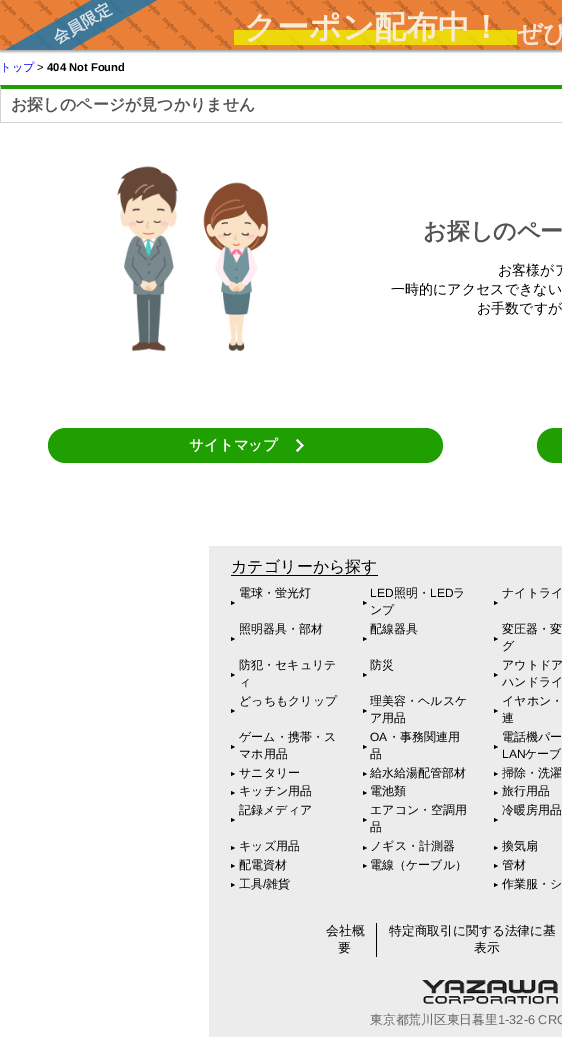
%!PS
<< /PageSize [562 1037] /PageUsesTransparency true >> setpagedevice
/rgb { 3 { 255 div 3 1 roll } repeat setrgbcolor } def
/font { [ exch dup neg 0 0 3 -1 roll 0 0 ] selectfont } def
/text { moveto show } def
/alpha { dup .setfillconstantalpha .setstrokeconstantalpha } def
/roundrect { 5 dict begin { /r /h /w /y /x } { exch def } forall
  x r add y moveto x w add y 2 copy h add r arct x w add y h add x 1 index r arct
  x y h add x y r arct x y 2 copy exch w add exch r arct closepath end } def
/shadow { 12 dict begin { /a /b /q /h /w /y /x } { exch def } forall gsave /was 0 def
  9 -2 -9 { dup b mul 4 div /e exch def 1 sub .425 mul 2.718 exch exp 1 add a .99 .min exch div /now exch def
    1 1 now sub 1 was sub div sub alpha /was now def
    w h .min e 2 mul add 0 gt { x e sub y e sub w e 2 mul add h e 2 mul add
      q e add b .6 mul add w h .min 2 div e add .min 0 .max roundrect fill } if } for grestore end } def
/picture { 5 dict begin { /h /w /y /x /name } { exch def } forall
  gsave x y translate w h scale
  w h 8 [w 0 0 h 0 0] name (r) file false 3 colorimage grestore end } def
0 .pushpdf14devicefilter
0 1037 translate 1 -1 scale
4 setmiterlimit
255 255 255 rgb
0 0 562 1037 rectfill
170 170 170 rgb
0 2 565 50 0 1 1 shadow
(img_01.rgb) 0 0 562 50 picture
gsave
0 0 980 50 rectclip
0.8 alpha
21 117 175 rgb
-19 64 moveto 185 -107 rlineto 17 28 rlineto -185 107 rlineto closepath fill
grestore
0.8 alpha
238 238 0 rgb
234 30 283 15 rectfill
1 alpha
31 159 1 rgb
0 85 moveto 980 0 rlineto -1 4 rlineto -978 0 rlineto closepath fill
210 210 210 rgb
0 122 562 1 rectfill
0 123 moveto 0 -38 rlineto 1 4 rlineto 0 33 rlineto closepath fill
(img_02.rgb) 117 166 152 186 picture
31 159 1 rgb
48 428 395 35 17.5 roundrect fill
255 255 255 rgb
297.5 439 moveto 6 6.5 rlineto -1 1.5 rlineto -6.5 -6.5 rlineto closepath fill
302.5 444 moveto 1 1.5 rlineto -6 6.5 rlineto -1.5 -1.5 rlineto closepath fill
31 159 1 rgb
537 428 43 35 17.5 roundrect fill
236 236 236 rgb
209 546 353 491 rectfill
0 0 0 rgb
231 575 147 1 rectfill
231 605 moveto 0 -4 rlineto 4 2 rlineto closepath fill
363 605 moveto 0 -4 rlineto 4 2 rlineto closepath fill
494 605 moveto 0 -4 rlineto 4 2 rlineto closepath fill
231 641 moveto 0 -4 rlineto 4 2 rlineto closepath fill
363 641 moveto 0 -4 rlineto 4 2 rlineto closepath fill
494 641 moveto 0 -4 rlineto 4 2 rlineto closepath fill
231 677 moveto 0 -4 rlineto 4 2 rlineto closepath fill
363 677 moveto 0 -4 rlineto 4 2 rlineto closepath fill
494 677 moveto 0 -4 rlineto 4 2 rlineto closepath fill
231 713 moveto 0 -4 rlineto 4 2 rlineto closepath fill
363 713 moveto 0 -4 rlineto 4 2 rlineto closepath fill
494 713 moveto 0 -4 rlineto 4 2 rlineto closepath fill
231 749 moveto 0 -4 rlineto 4 2 rlineto closepath fill
363 749 moveto 0 -4 rlineto 4 2 rlineto closepath fill
494 749 moveto 0 -4 rlineto 4 2 rlineto closepath fill
231 776 moveto 0 -4 rlineto 4 2 rlineto closepath fill
363 776 moveto 0 -4 rlineto 4 2 rlineto closepath fill
494 776 moveto 0 -4 rlineto 4 2 rlineto closepath fill
231 795 moveto 0 -4 rlineto 4 2 rlineto closepath fill
363 795 moveto 0 -4 rlineto 4 2 rlineto closepath fill
494 795 moveto 0 -4 rlineto 4 2 rlineto closepath fill
231 822 moveto 0 -4 rlineto 4 2 rlineto closepath fill
363 822 moveto 0 -4 rlineto 4 2 rlineto closepath fill
494 822 moveto 0 -4 rlineto 4 2 rlineto closepath fill
231 850 moveto 0 -4 rlineto 4 2 rlineto closepath fill
363 850 moveto 0 -4 rlineto 4 2 rlineto closepath fill
494 850 moveto 0 -4 rlineto 4 2 rlineto closepath fill
231 868 moveto 0 -4 rlineto 4 2 rlineto closepath fill
363 868 moveto 0 -4 rlineto 4 2 rlineto closepath fill
494 868 moveto 0 -4 rlineto 4 2 rlineto closepath fill
231 887 moveto 0 -4 rlineto 4 2 rlineto closepath fill
494 887 moveto 0 -4 rlineto 4 2 rlineto closepath fill
376 923 1 34 rectfill
(img_03.rgb) 422 980 136 24 picture
/WenQuanYiZenHei-Bold 16 font
217 228 234 rgb
gsave 57 44 translate -30 rotate 0 0 moveto (会員限定) show grestore
/WenQuanYiZenHei-Bold 32 font
250 235 212 rgb
(クーポン配布中！) 244 38 text
/WenQuanYiZenHei-Bold 25 font
250 229 215 rgb
(ぜひ) 517 42 text
/WenQuanYiZenHei-Medium 11.25 font
0 0 238 rgb
(トップ) 0 71 text
/LiberationSans-Regular 11.25 font
0 0 0 rgb
(>) 37 71 text
/LiberationSans-Bold 11.25 font
(404 Not Found) 47 71 text
/WenQuanYiZenHei-Bold 16 font
83 83 83 rgb
(お探しのページが見つかりません) 11 110 text
/WenQuanYiZenHei-Bold 23 font
(お探しのペー) 423 239 text
/WenQuanYiZenHei-Medium 14 font
0 0 0 rgb
(お客様がア) 498 275 text
(一時的にアクセスできない) 391 294 text
(お手数ですが) 477 313 text
/WenQuanYiZenHei-Bold 14.5 font
255 255 255 rgb
(サイトマップ) 189 450 text
/WenQuanYiZenHei-Medium 16 font
0 0 0 rgb
(カテゴリーから探す) 231 572 text
/WenQuanYiZenHei-Medium 12 font
(電球・蛍光灯) 239 597 text
/LiberationSans-Regular 12 font
(LED) 370 597 text
/WenQuanYiZenHei-Medium 12 font
(照明・) 394 597 text
/LiberationSans-Regular 12 font
(LED) 430 597 text
/WenQuanYiZenHei-Medium 12 font
(ラ) 453 597 text
(ンプ) 370 614 text
(ナイトライ) 502 597 text
(照明器具・部材) 239 633 text
(配線器具) 370 633 text
(変圧器・変) 502 633 text
(グ) 502 650 text
(防犯・セキュリテ) 239 669 text
(ィ) 239 686 text
(防災) 370 669 text
(アウトドア) 502 669 text
(ハンドライ) 502 686 text
(どっちもクリップ) 239 705 text
(理美容・ヘルスケ) 370 705 text
(ア用品) 370 722 text
(イヤホン・) 502 705 text
(連) 502 722 text
(ゲーム・携帯・ス) 239 741 text
(マホ用品) 239 758 text
/LiberationSans-Regular 12 font
(OA) 370 741 text
/WenQuanYiZenHei-Medium 12 font
(・事務関連用) 388 741 text
(品) 370 758 text
(電話機パー) 502 741 text
/LiberationSans-Regular 12 font
(LAN) 502 758 text
/WenQuanYiZenHei-Medium 12 font
(ケーブ) 525 758 text
(サニタリー) 239 777 text
(給水給湯配管部材) 370 777 text
(掃除・洗濯) 502 777 text
(キッチン用品) 239 795 text
(電池類) 370 795 text
(旅行用品) 502 795 text
(記録メディア) 239 814 text
(エアコン・空調用) 370 814 text
(品) 370 831 text
(冷暖房用品) 502 814 text
(キッズ用品) 239 850 text
(ノギス・計測器) 370 850 text
(換気扇) 502 850 text
(配電資材) 239 869 text
(電線（ケーブル）) 370 869 text
(管材) 502 869 text
(工具) 239 888 text
/LiberationSans-Regular 12 font
(/) 263 888 text
/WenQuanYiZenHei-Medium 12 font
(雑貨) 266 888 text
(作業服・シ) 502 888 text
/WenQuanYiZenHei-Medium 12.75 font
(会社概) 326 935 text
(要) 338 952 text
(特定商取引に関する法律に基) 389 935 text
(表示) 474 952 text
102 102 102 rgb
(東京都荒川区東日暮里) 370 1024 text
/LiberationSans-Regular 12.75 font
(1-32-6 CRO) 498 1024 text
.poppdf14devicefilter showpage
